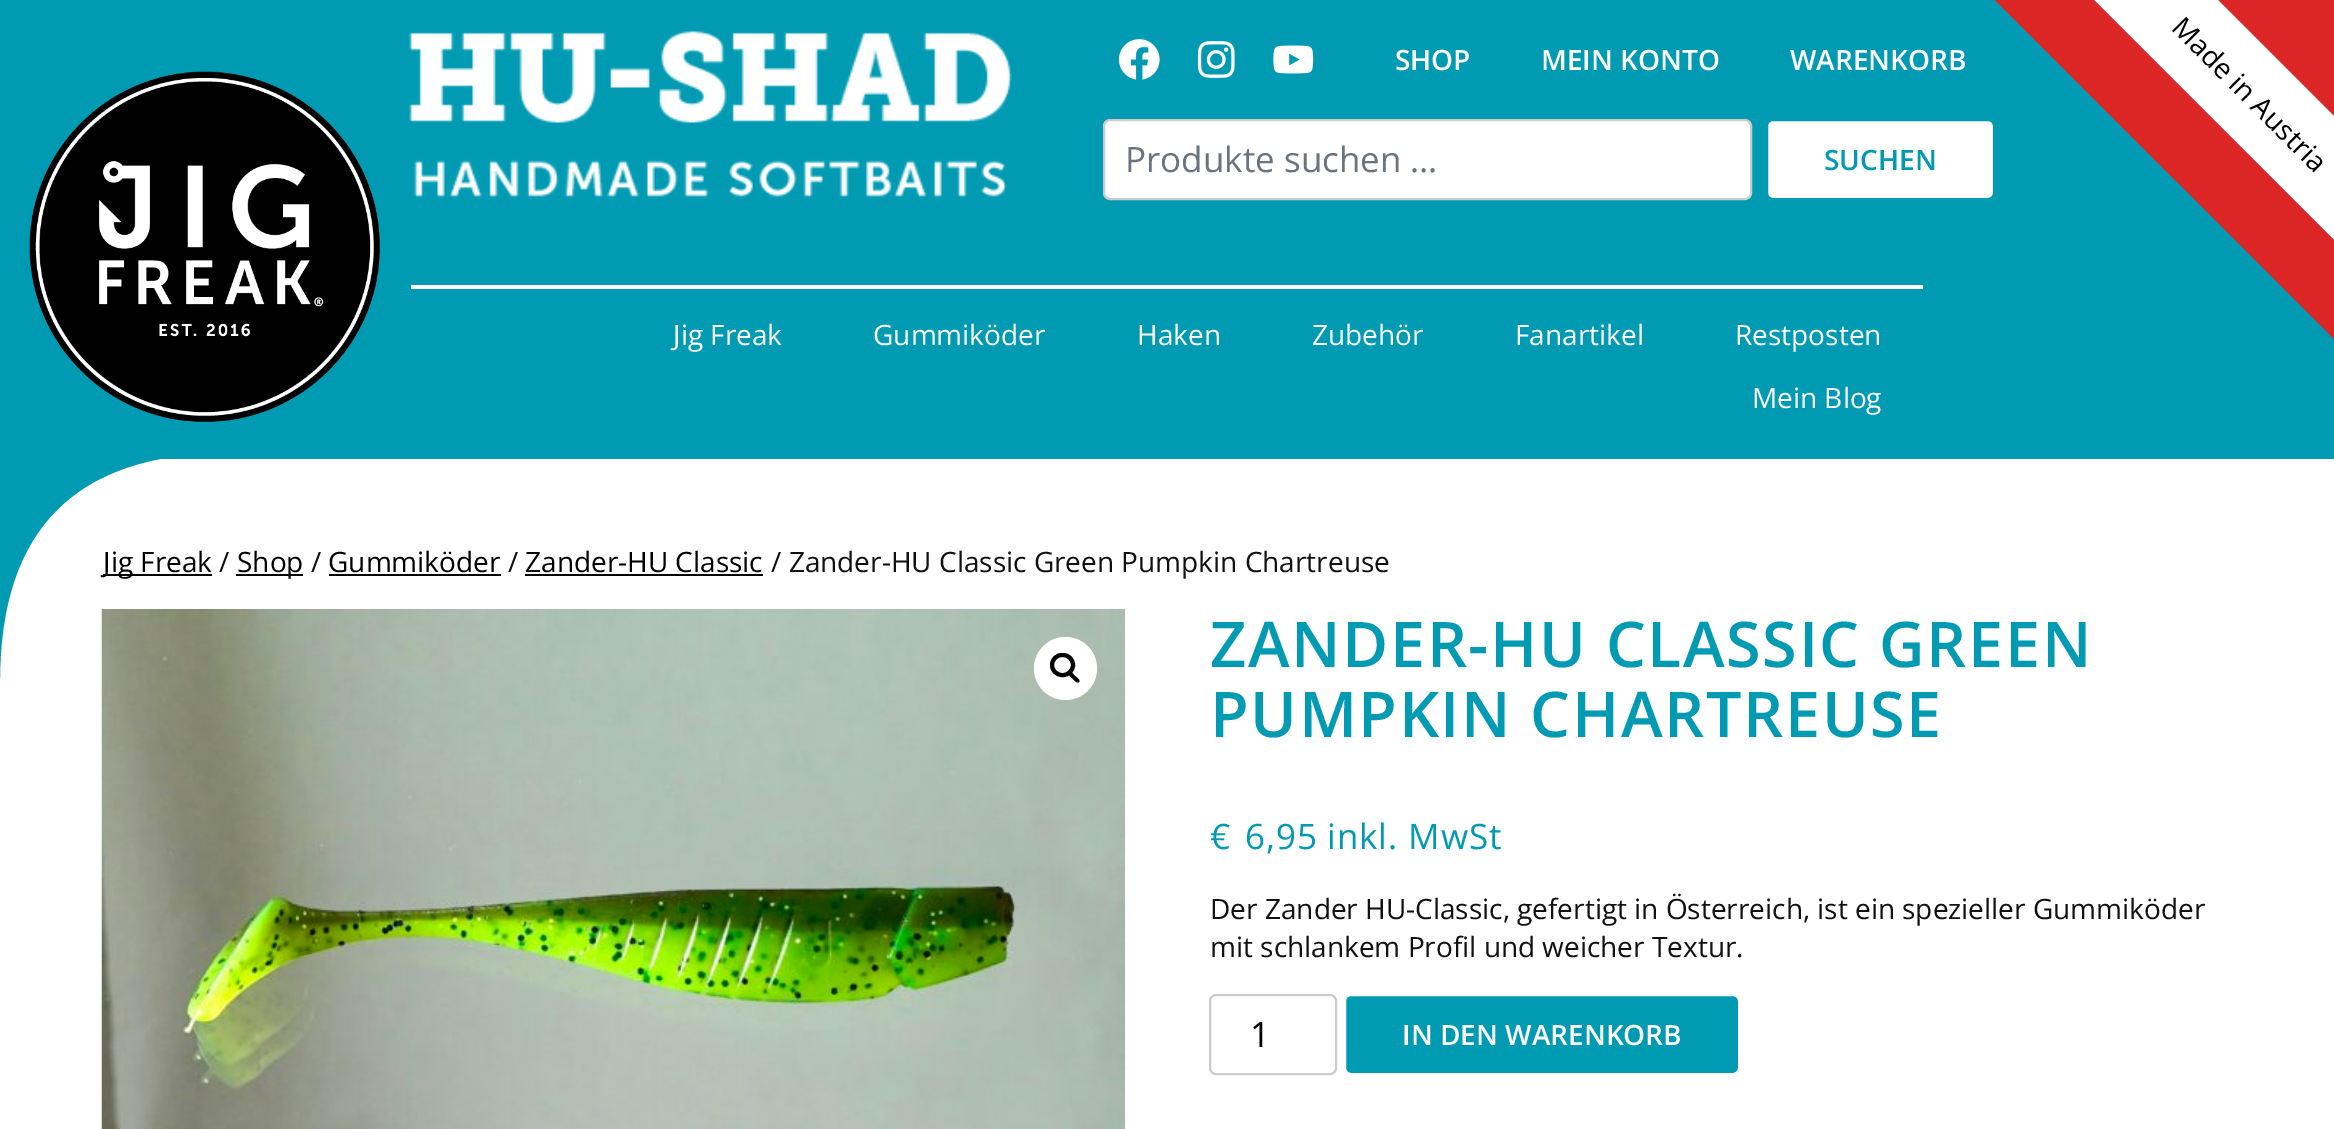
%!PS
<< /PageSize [2334 1129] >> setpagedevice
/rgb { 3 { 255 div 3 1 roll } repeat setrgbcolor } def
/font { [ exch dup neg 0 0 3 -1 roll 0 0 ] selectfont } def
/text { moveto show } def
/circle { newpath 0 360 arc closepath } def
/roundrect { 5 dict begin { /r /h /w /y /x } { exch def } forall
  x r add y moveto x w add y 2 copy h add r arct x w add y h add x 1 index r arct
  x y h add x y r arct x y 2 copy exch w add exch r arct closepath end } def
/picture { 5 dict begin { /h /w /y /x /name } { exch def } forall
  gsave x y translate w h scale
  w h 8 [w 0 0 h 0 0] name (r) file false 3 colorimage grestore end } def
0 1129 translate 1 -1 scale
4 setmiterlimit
255 255 255 rgb
0 0 2334 1129 rectfill
0 155 179 rgb
0 0 2334 457 rectfill
3 151 180 rgb
160 457 2174 2 rectfill
(img_01.rgb) 29 71 351 351 picture
(img_02.rgb) 409 31 603 168 picture
(img_03.rgb) 1118 39 42 41 picture
(img_04.rgb) 1197 41 38 37 picture
(img_05.rgb) 1273 45 41 29 picture
255 255 255 rgb
1104 120 647 79 6 roundrect gsave fill grestore
204 204 204 rgb
2 setlinewidth
stroke
255 255 255 rgb
1767 120 227 79 6 roundrect gsave fill grestore
0 155 179 rgb
stroke
255 255 255 rgb
411 285 1512 4 rectfill
220 38 38 rgb
2157 -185 moveto 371 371 rlineto -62 62 rlineto -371 -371 rlineto closepath fill
255 255 255 rgb
2095 -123 moveto 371 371 rlineto -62 62 rlineto -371 -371 rlineto closepath fill
220 38 38 rgb
2033 -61 moveto 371 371 rlineto -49 50 rlineto -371 -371 rlineto closepath fill
0 0 0 rgb
103 574 109 2 rectfill
236 574 67 2 rectfill
329 574 172 2 rectfill
525 574 238 2 rectfill
(img_06.rgb) 101 609 1025 520 picture
255 255 255 rgb
1065.5 668.5 31.5 circle fill
0 0 0 rgb
4 setlinewidth
1052 655 21 20 10 roundrect stroke
1069 672.5 moveto 2 -2 5 2.5 6 3.5 rcurveto 1 1 6 4 4 6 rcurveto -2 2 -5.5 -2.5 -6.5 -3.5 rcurveto -1 -1 -5.5 -4 -3.5 -6 rcurveto closepath fill
204 204 204 rgb
2 setlinewidth
1210 995 126 79 6 roundrect stroke
0 155 179 rgb
1345 995 394 79 6 roundrect gsave fill grestore
255 255 255 rgb
stroke
/OpenSans-SemiBold 28 font
(SHOP) 1395 70 text
(MEIN KONTO) 1541 70 text
(WARENKORB) 1790 70 text
/OpenSans-Regular 35 font
107 114 128 rgb
(Produkte suchen …) 1125 172 text
/OpenSans-SemiBold 28 font
0 155 179 rgb
(SUCHEN) 1824 170 text
/OpenSans-Regular 28 font
255 255 255 rgb
(Jig Freak) 673 345 text
(Gummiköder) 873 345 text
(Haken) 1137 345 text
(Zubehör) 1312 345 text
(Fanartikel) 1515 345 text
(Restposten) 1735 345 text
(Mein Blog) 1752 408 text
0 0 0 rgb
gsave 2170 29 translate 45 rotate 0 0 moveto (Made in Austria) show grestore
(Jig Freak) 103 572 text
gsave
0 453 175 228 rectclip
0 155 179 rgb
0 453 moveto 228 0 rlineto -152 0 -228 76 -228 228 rcurveto 0 -228 rlineto fill
grestore
17 17 17 rgb
(/) 219 572 text
0 0 0 rgb
(Shop) 237 572 text
17 17 17 rgb
(/) 311 572 text
0 0 0 rgb
(Gummiköder) 328 572 text
17 17 17 rgb
(/) 508 572 text
0 0 0 rgb
(Zander-HU Classic) 525 572 text
17 17 17 rgb
(/ Zander-HU Classic Green Pumpkin Chartreuse) 771 572 text
/OpenSans-SemiBold 63 font
0 155 179 rgb
1210 667 moveto 1.6 0 (ZANDER-HU CLASSIC GREEN) ashow
1210 737 moveto 1.6 0 (PUMPKIN CHARTREUSE) ashow
/OpenSans-Regular 35 font
1210 849 moveto 0.9 0 (€) ashow
1245 849 moveto 0.9 0 (6,95) ashow
1327 849 moveto 0.9 0 (inkl. MwSt) ashow
/OpenSans-Regular 28 font
17 17 17 rgb
(Der Zander HU-Classic, gefertigt in Österreich, ist ein spezieller Gummiköder) 1210 919 text
(mit schlankem Profil und weicher Textur.) 1210 957 text
/OpenSans-Regular 35 font
0 0 0 rgb
(1) 1250 1047 text
/OpenSans-SemiBold 28 font
255 255 255 rgb
(IN DEN WARENKORB) 1402 1045 text
showpage
